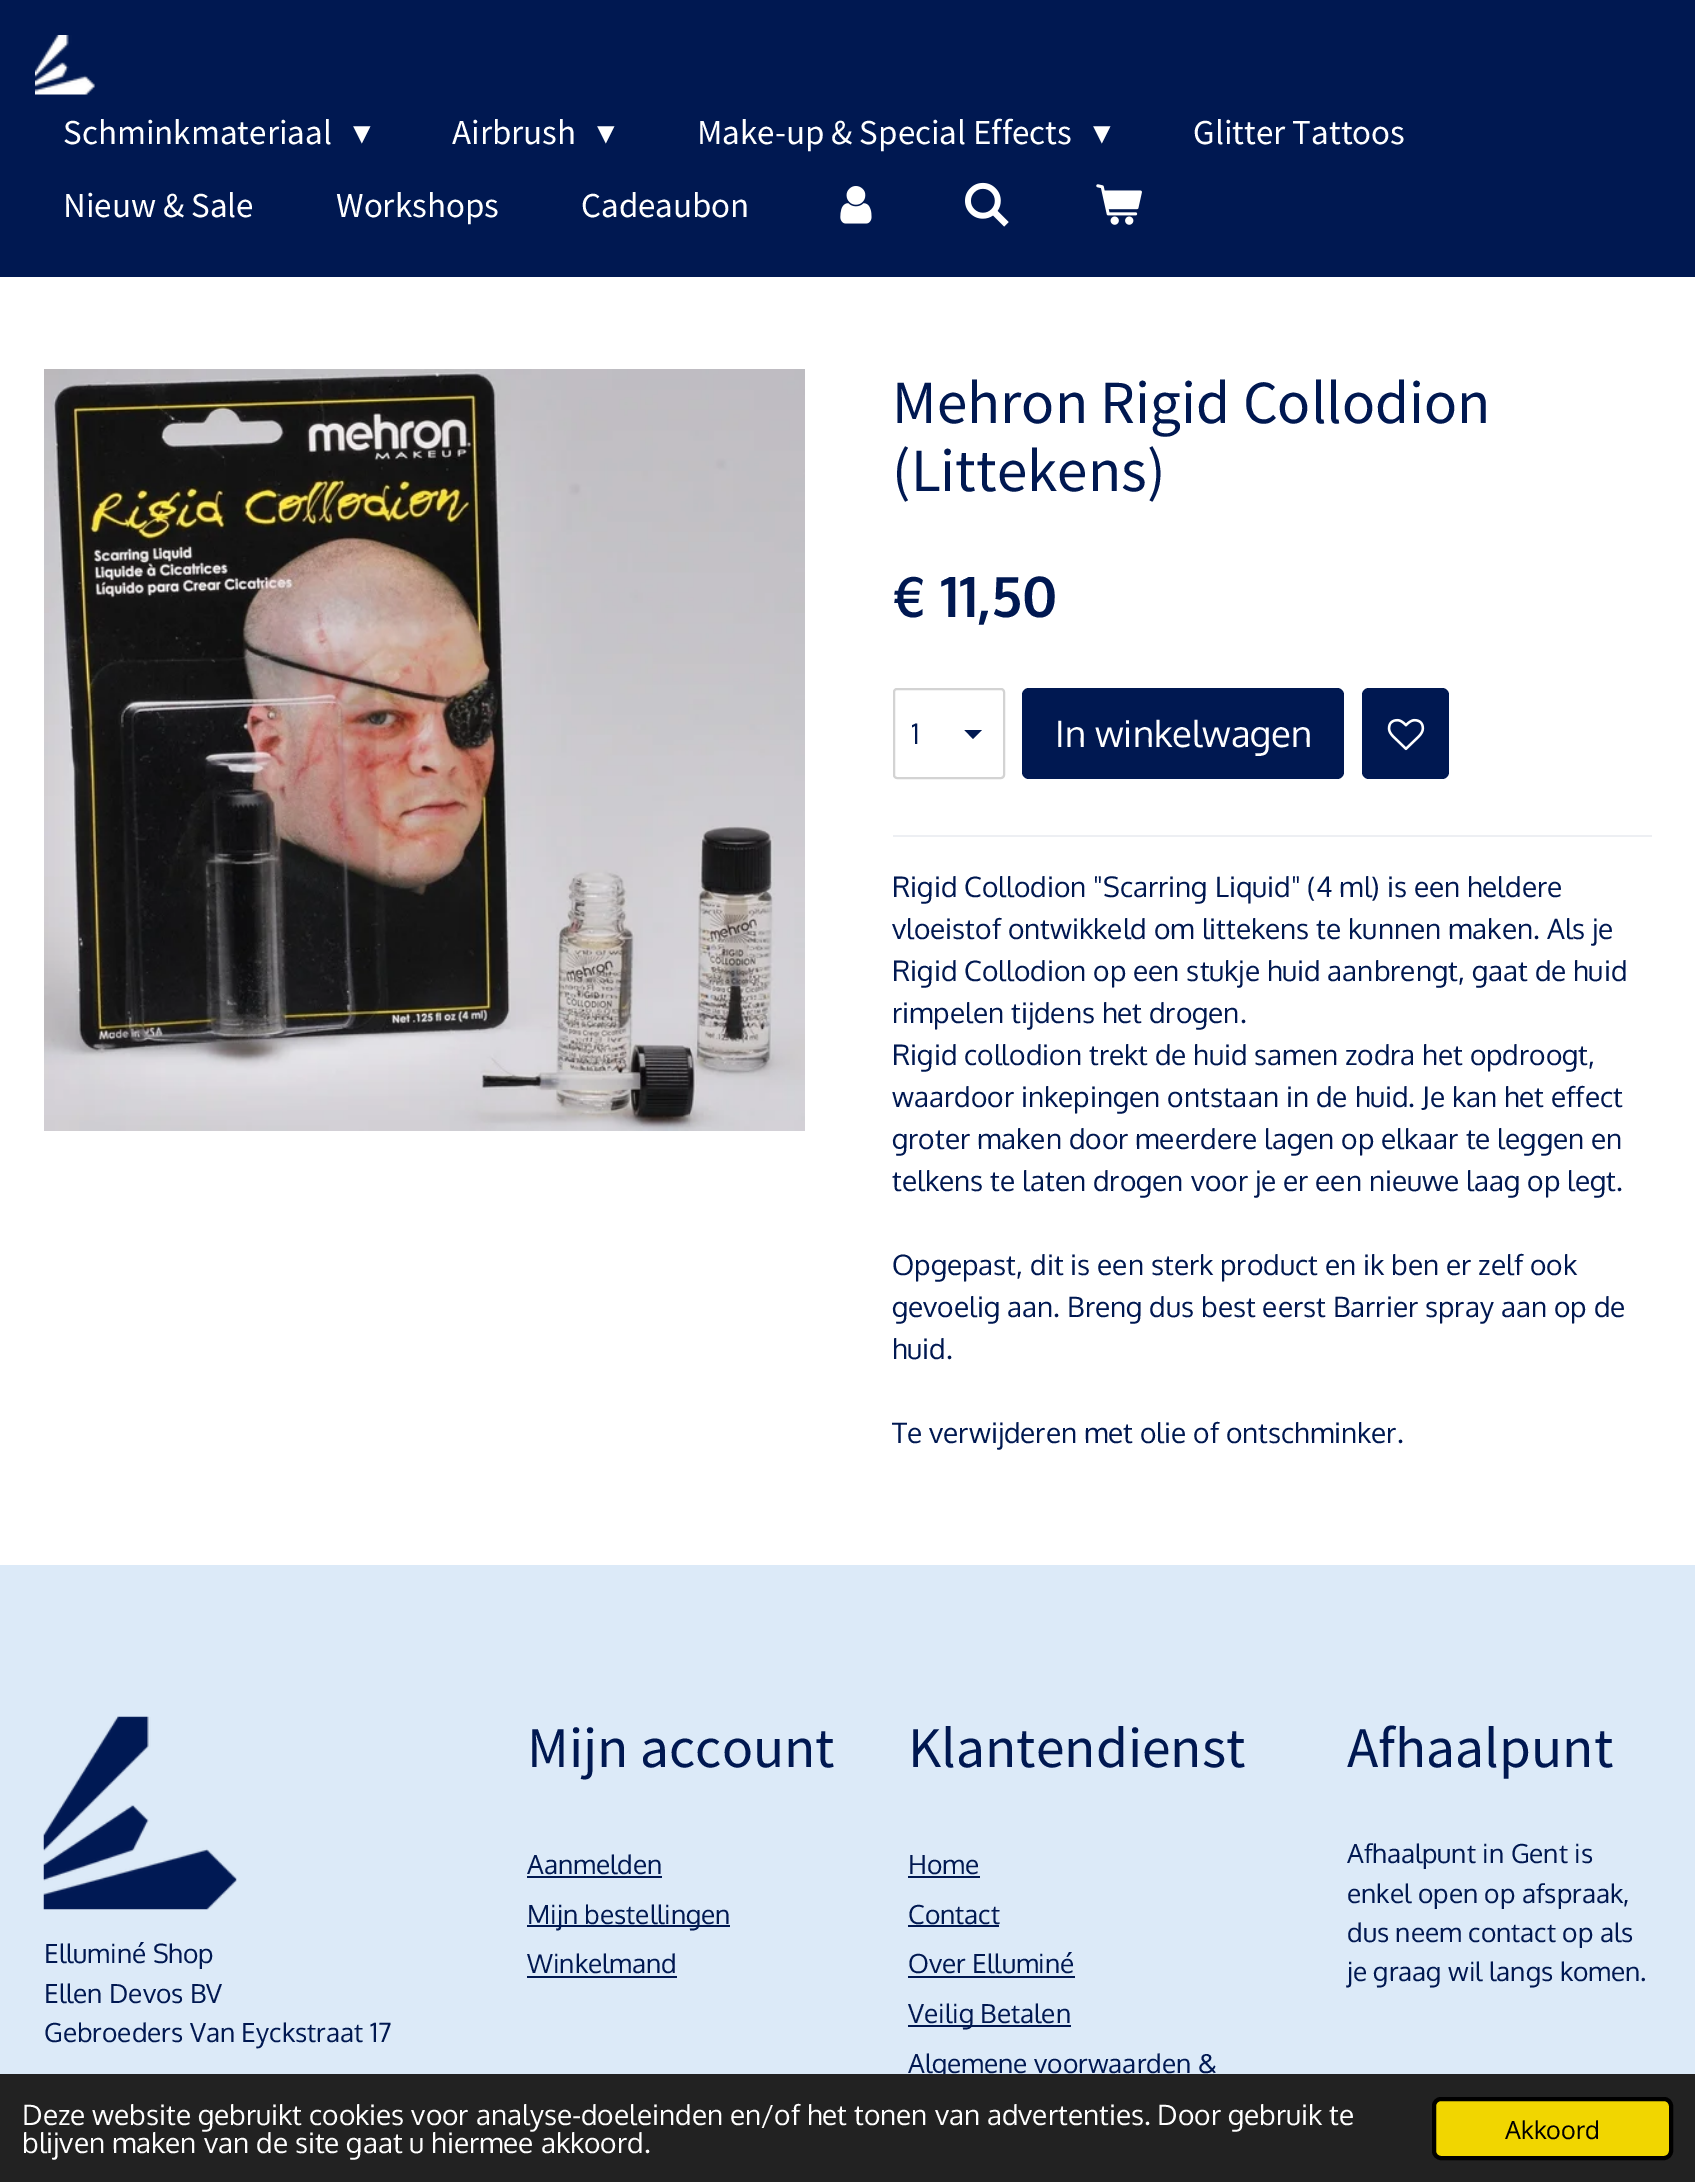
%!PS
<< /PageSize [1695 2182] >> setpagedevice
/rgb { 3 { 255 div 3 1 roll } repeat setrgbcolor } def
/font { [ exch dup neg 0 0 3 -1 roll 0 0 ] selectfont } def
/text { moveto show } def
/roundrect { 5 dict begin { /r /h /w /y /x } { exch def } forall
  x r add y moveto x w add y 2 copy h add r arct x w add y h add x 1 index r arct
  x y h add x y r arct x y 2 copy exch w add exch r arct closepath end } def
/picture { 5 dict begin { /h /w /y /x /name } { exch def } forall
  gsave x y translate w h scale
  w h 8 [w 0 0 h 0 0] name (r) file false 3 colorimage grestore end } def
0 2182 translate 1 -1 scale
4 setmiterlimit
0 24 81 rgb
0 0 1695 2182 rectfill
(img_01.rgb) 35 35 60 60 picture
(img_02.rgb) 840 186 32 38 picture
(img_03.rgb) 965 182 44 45 picture
(img_04.rgb) 1096 184 46 41 picture
255 255 255 rgb
0 277 1695 1288 rectfill
(img_05.rgb) 44 369 761 762 picture
0 24 81 rgb
973 739 moveto -8.5 -9 rlineto 17.5 0 rlineto closepath fill
211 211 211 rgb
2 setlinewidth
894 689 110 89 3 roundrect stroke
0 24 81 rgb
1022 688 322 91 7 roundrect fill
1362 688 87 91 7 roundrect fill
(img_06.rgb) 1387 718 38 33 picture
237 239 243 rgb
893 835 759 2 rectfill
220 234 248 rgb
0 1565 1695 509 rectfill
0 24 81 rgb
527 1876 135 2 rectfill
527 1925 203 2 rectfill
527 1976 150 2 rectfill
908 1876 72 2 rectfill
908 1925 91 2 rectfill
908 1976 167 2 rectfill
908 2025 163 2 rectfill
(img_07.rgb) 43 1716 194 194 picture
/SourceSansPro-Regular 35 font
255 255 255 rgb
(Schminkmateriaal) 63 144 text
/DejaVuSans-Regular 35 font
(▾) 353 144 text
/SourceSansPro-Regular 35 font
(Airbrush) 452 144 text
/DejaVuSans-Regular 35 font
(▾) 597 144 text
/SourceSansPro-Regular 35 font
(Make-up & Special Effects) 697 144 text
/DejaVuSans-Regular 35 font
(▾) 1093 144 text
/SourceSansPro-Regular 35 font
(Glitter Tattoos) 1193 144 text
(Nieuw & Sale) 63 217 text
(Workshops) 336 217 text
(Cadeaubon) 581 217 text
/SourceSansPro-Regular 61.25 font
0 24 81 rgb
(Mehron Rigid Collodion) 892 423 text
(\(Littekens\)) 892 491 text
/Oxygen-Bold 56 font
(€ 11,50) 892 617 text
gsave
912 716 91 35 rectclip
/Oxygen-Regular 28 font
(1) 911 744 text
grestore
/Oxygen-Regular 36.5 font
255 255 255 rgb
(In winkelwagen) 1055 747 text
/Oxygen-Regular 28 font
0 24 81 rgb
(Rigid Collodion "Scarring Liquid" \(4 ml\) is een heldere) 892 897 text
(vloeistof ontwikkeld om littekens te kunnen maken. Als je) 892 939 text
(Rigid Collodion op een stukje huid aanbrengt, gaat de huid) 892 981 text
(rimpelen tijdens het drogen.) 892 1023 text
(Rigid collodion trekt de huid samen zodra het opdroogt,) 892 1065 text
(waardoor inkepingen ontstaan in de huid. Je kan het effect) 892 1107 text
(groter maken door meerdere lagen op elkaar te leggen en) 892 1149 text
(telkens te laten drogen voor je er een nieuwe laag op legt.) 892 1191 text
(Opgepast, dit is een sterk product en ik ben er zelf ook) 892 1275 text
(gevoelig aan. Breng dus best eerst Barrier spray aan op de) 892 1317 text
(huid.) 892 1359 text
(Te verwijderen met olie of ontschminker.) 892 1443 text
/SourceSansPro-Regular 57.5 font
(Mijn account) 527 1767 text
/Oxygen-Regular 26.25 font
(Aanmelden) 527 1874 text
(Mijn bestellingen) 527 1924 text
(Winkelmand) 527 1973 text
/SourceSansPro-Regular 57.5 font
(Klantendienst) 908 1767 text
/Oxygen-Regular 26.25 font
(Home) 908 1874 text
(Contact) 908 1924 text
(Over Elluminé) 908 1973 text
(Veilig Betalen) 908 2023 text
(Algemene voorwaarden &) 908 2073 text
/SourceSansPro-Regular 57.5 font
(Afhaalpunt) 1347 1767 text
/Oxygen-Regular 26.25 font
(Afhaalpunt in Gent is) 1347 1863 text
(enkel open op afspraak,) 1347 1903 text
(dus neem contact op als) 1347 1942 text
(je graag wil langs komen.) 1347 1981 text
(Elluminé Shop) 44 1963 text
(Ellen Devos BV) 44 2003 text
(Gebroeders Van Eyckstraat 17) 44 2042 text
34 34 34 rgb
0 2074 1695 108 rectfill
/Oxygen-Regular 28 font
255 255 255 rgb
(Deze website gebruikt cookies voor analyse-doeleinden en/of het tonen van advertenties. Door gebruik te) 22 2125 text
(blijven maken van de site gaat u hiermee akkoord.) 22 2153 text
241 214 0 rgb
1434 2099 237 59 7 roundrect gsave fill grestore
0 0 0 rgb
4 setlinewidth
stroke
/Oxygen-Regular 25 font
(Akkoord) 1505 2139 text
showpage
